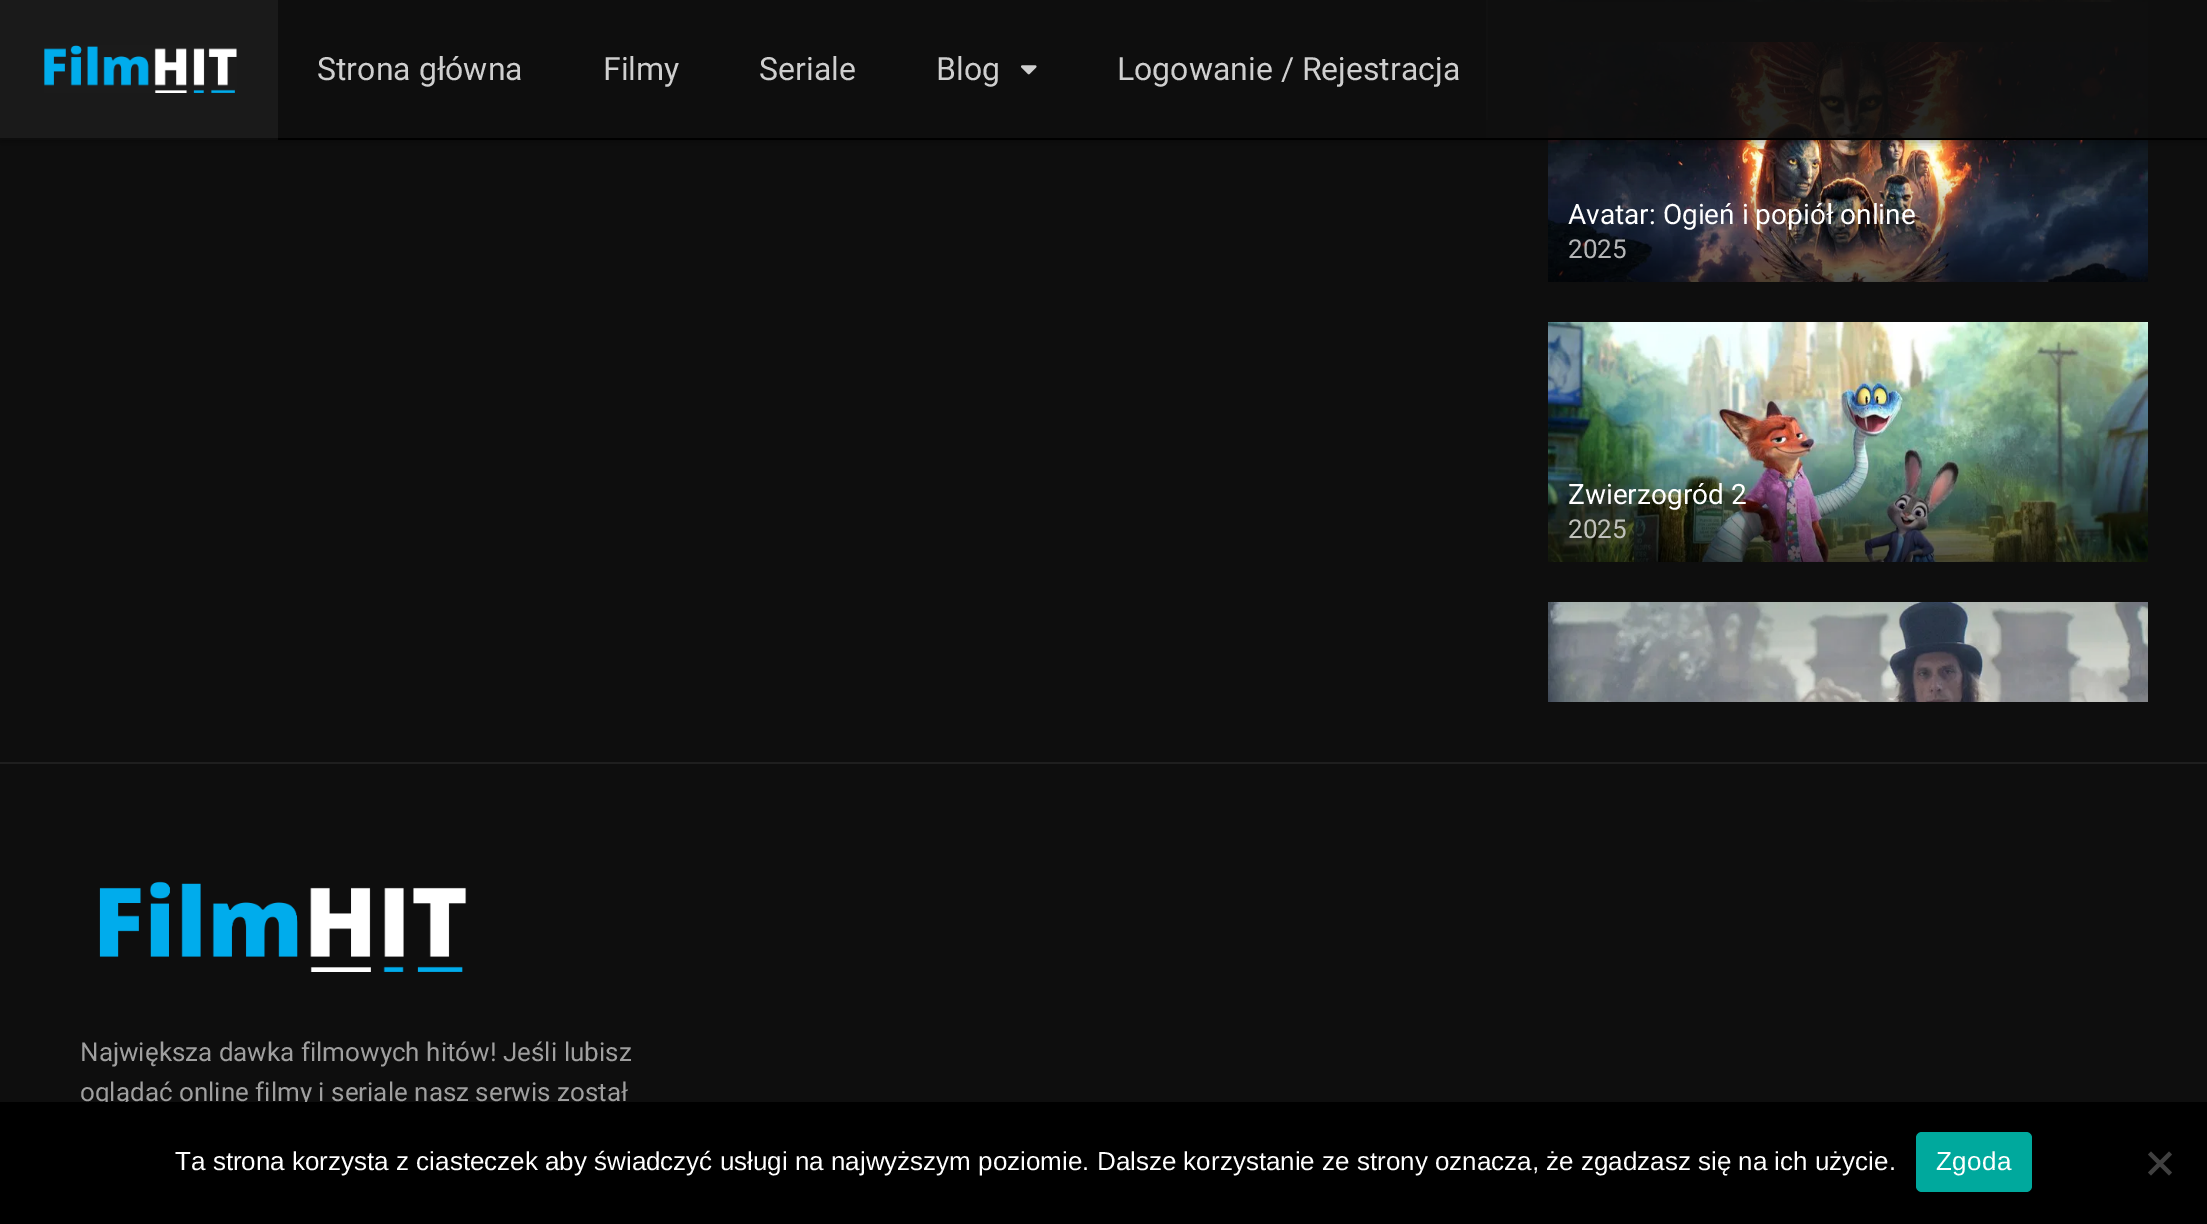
%!PS
<< /PageSize [2207 1224] /PageUsesTransparency true >> setpagedevice
/rgb { 3 { 255 div 3 1 roll } repeat setrgbcolor } def
/font { [ exch dup neg 0 0 3 -1 roll 0 0 ] selectfont } def
/text { moveto show } def
/alpha { dup .setfillconstantalpha .setstrokeconstantalpha } def
/roundrect { 5 dict begin { /r /h /w /y /x } { exch def } forall
  x r add y moveto x w add y 2 copy h add r arct x w add y h add x 1 index r arct
  x y h add x y r arct x y 2 copy exch w add exch r arct closepath end } def
/shadow { 12 dict begin { /a /b /q /h /w /y /x } { exch def } forall gsave /was 0 def
  9 -2 -9 { dup b mul 4 div /e exch def 1 sub .425 mul 2.718 exch exp 1 add a .99 .min exch div /now exch def
    1 1 now sub 1 was sub div sub alpha /was now def
    w h .min e 2 mul add 0 gt { x e sub y e sub w e 2 mul add h e 2 mul add
      q e add b .6 mul add w h .min 2 div e add .min 0 .max roundrect fill } if } for grestore end } def
/picture { 5 dict begin { /h /w /y /x /name } { exch def } forall
  gsave x y translate w h scale
  w h 8 [w 0 0 h 0 0] name (r) file false 3 colorimage grestore end } def
0 .pushpdf14devicefilter
0 1224 translate 1 -1 scale
4 setmiterlimit
14 14 14 rgb
0 0 2207 1224 rectfill
33 33 33 rgb
1486 0 2 120 rectfill
(img_03.rgb) 1548 0 600 2 picture
(img_04.rgb) 1548 42 600 240 picture
gsave
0 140 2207 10 rectclip
0 0 0 rgb
0 2 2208 140 0 5 0.4 shadow
grestore
0.9 alpha
15 15 15 rgb
1486 0 662 138 rectfill
1 alpha
0 0 0 rgb
0 138 2207 2 rectfill
0.05 alpha
255 255 255 rgb
0 0 278 140 rectfill
1 alpha
(img_01.rgb) 44 45 193 48 picture
(img_02.rgb) 1021 65 16 10 picture
31 31 31 rgb
0 762 2207 2 rectfill
(img_05.rgb) 1548 322 600 240 picture
(img_06.rgb) 1548 602 600 100 picture
(img_07.rgb) 99 881 368 91 picture
/Roboto-Regular 32 font
207 207 207 rgb
(Strona główna) 317 80 text
(Filmy) 603 80 text
(Seriale) 759 80 text
(Blog) 936 80 text
(Logowanie / Rejestracja) 1117 80 text
/Roboto-Regular 28 font
255 255 255 rgb
(Avatar: Ogień i popiół online) 1568 224 text
/Roboto-Regular 26 font
181 182 183 rgb
(2025) 1568 258 text
/Roboto-Regular 28 font
255 255 255 rgb
(Zwierzogród 2) 1568 504 text
/Roboto-Regular 26 font
191 193 187 rgb
(2025) 1568 538 text
159 159 159 rgb
(Największa dawka filmowych hitów! Jeśli lubisz) 80 1061 text
(oglądać online filmy i seriale nasz serwis został) 80 1101 text
0 0 0 rgb
0 1102 2207 122 rectfill
/LiberationSans-Regular 26 font
255 255 255 rgb
(Ta strona korzysta z ciasteczek aby świadczyć usługi na najwyższym poziomie. Dalsze korzystanie ze strony oznacza, że zgadzasz się na ich użycie.) 175 1170 text
0 169 157 rgb
1916 1132 116 60 6 roundrect fill
255 255 255 rgb
1936 1170 moveto 0.5 0 (Zgoda) ashow
64 64 64 rgb
2169 1151.5 moveto 3 3 rlineto -21 21 rlineto -3 -3 rlineto closepath fill
2148 1154.5 moveto 3 -3 rlineto 21 21 rlineto -3 3 rlineto closepath fill
.poppdf14devicefilter showpage
